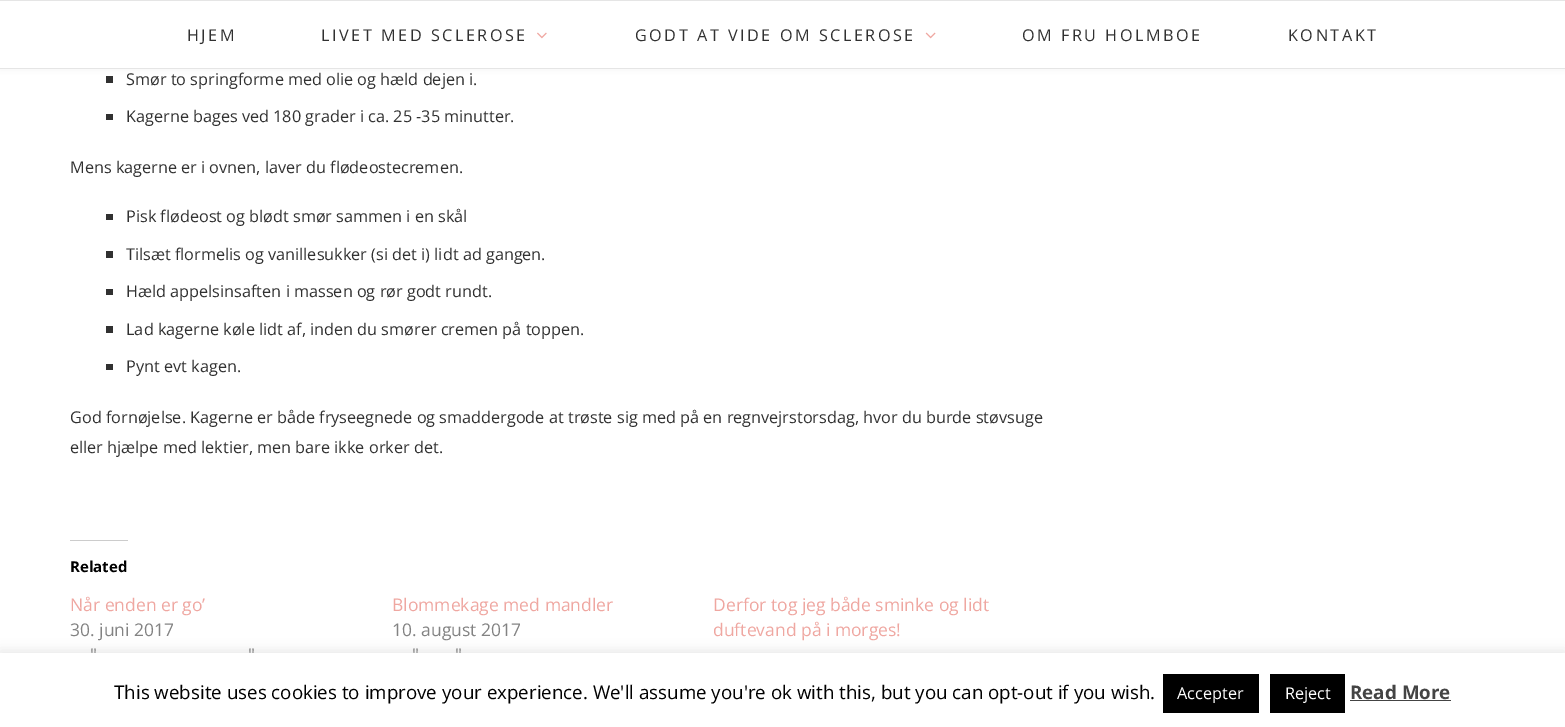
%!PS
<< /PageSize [1565 727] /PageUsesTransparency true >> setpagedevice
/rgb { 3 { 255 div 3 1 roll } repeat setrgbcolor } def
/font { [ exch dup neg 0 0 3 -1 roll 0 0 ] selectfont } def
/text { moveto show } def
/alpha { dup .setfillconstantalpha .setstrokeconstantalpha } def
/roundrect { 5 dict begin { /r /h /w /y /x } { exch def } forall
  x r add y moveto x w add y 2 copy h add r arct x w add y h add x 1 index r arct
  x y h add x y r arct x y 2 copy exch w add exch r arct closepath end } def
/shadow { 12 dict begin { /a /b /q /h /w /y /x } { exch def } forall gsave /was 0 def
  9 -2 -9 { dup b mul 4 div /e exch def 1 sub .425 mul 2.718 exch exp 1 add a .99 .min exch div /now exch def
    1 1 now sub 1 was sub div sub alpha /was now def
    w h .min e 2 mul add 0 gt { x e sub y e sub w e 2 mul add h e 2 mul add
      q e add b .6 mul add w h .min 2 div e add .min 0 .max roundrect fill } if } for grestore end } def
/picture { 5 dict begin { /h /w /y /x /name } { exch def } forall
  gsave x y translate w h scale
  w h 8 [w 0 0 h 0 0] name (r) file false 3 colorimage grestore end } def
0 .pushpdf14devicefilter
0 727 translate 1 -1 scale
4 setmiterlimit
255 255 255 rgb
0 0 1565 727 rectfill
49 49 49 rgb
106 76 7 7 rectfill
190 190 190 rgb
0 1 1565 69 0 3 0.16 shadow
255 255 255 rgb
0 1 1565 67 rectfill
229 229 229 rgb
0 0 1565 1 rectfill
0 68 1565 1 rectfill
(img_01.rgb) 537 32 10 7 picture
(img_02.rgb) 925 32 11 7 picture
49 49 49 rgb
106 114 7 6 rectfill
106 214 7 6 rectfill
106 251 7 7 rectfill
106 289 7 6 rectfill
106 326 7 7 rectfill
106 364 7 6 rectfill
204 204 204 rgb
70 540 58 1 rectfill
172 171 171 rgb
0 651 1565 75 0 6 0.3 shadow
255 255 255 rgb
0 653 1565 74 rectfill
0 0 0 rgb
1163 674 96 39 rectfill
1270 674 75 39 rectfill
68 68 68 rgb
1350 700 101 1 rectfill
/OpenSans-Regular 16.25 font
49 49 49 rgb
187 41 moveto 2.5 0 (HJEM) ashow
321 41 moveto 2.5 0 (LIVET MED SCLEROSE) ashow
635 41 moveto 2.5 0 (GODT AT VIDE OM SCLEROSE) ashow
1022 41 moveto 2.5 0 (OM FRU HOLMBOE) ashow
1288 41 moveto 2.5 0 (KONTAKT) ashow
(Smør to springforme med olie og hæld dejen i.) 126 85 text
(Kagerne bages ved 180 grader i ca. 25 -35 minutter.) 126 122 text
(Mens kagerne er i ovnen, laver du flødeostecremen.) 70 173 text
(Pisk flødeost og blødt smør sammen i en skål) 126 222 text
(Tilsæt flormelis og vanillesukker \(si det i\) lidt ad gangen.) 126 260 text
(Hæld appelsinsaften i massen og rør godt rundt.) 126 297 text
(Lad kagerne køle lidt af, inden du smører cremen på toppen.) 126 335 text
(Pynt evt kagen.) 126 372 text
(God fornøjelse. Kagerne er både fryseegnede og smaddergode at trøste sig med på en regnvejrstorsdag, hvor du burde støvsuge) 70 423 text
(eller hjælpe med lektier, men bare ikke orker det.) 70 453 text
/OpenSans-Bold 15 font
0 0 0 rgb
(Related) 70 572 text
/OpenSans-Regular 17.5 font
239 167 161 rgb
(Når enden er go’) 70 611 text
131 131 131 rgb
(30. juni 2017) 70 636 text
(") 90 661 text
(") 248 661 text
239 167 161 rgb
(Blommekage med mandler) 392 611 text
131 131 131 rgb
(10. august 2017) 392 636 text
(") 412 661 text
(") 455 661 text
239 167 161 rgb
(Derfor tog jeg både sminke og lidt) 713 611 text
(duftevand på i morges!) 713 636 text
/OpenSans-Regular 18.75 font
0 0 0 rgb
(This website uses cookies to improve your experience. We'll assume you're ok with this, but you can opt-out if you wish.) 114 699 text
/OpenSans-Regular 16.25 font
255 255 255 rgb
(Accepter) 1177 699 text
(Reject) 1285 699 text
/OpenSans-Bold 18.75 font
68 68 68 rgb
(Read More) 1350 699 text
.poppdf14devicefilter showpage
